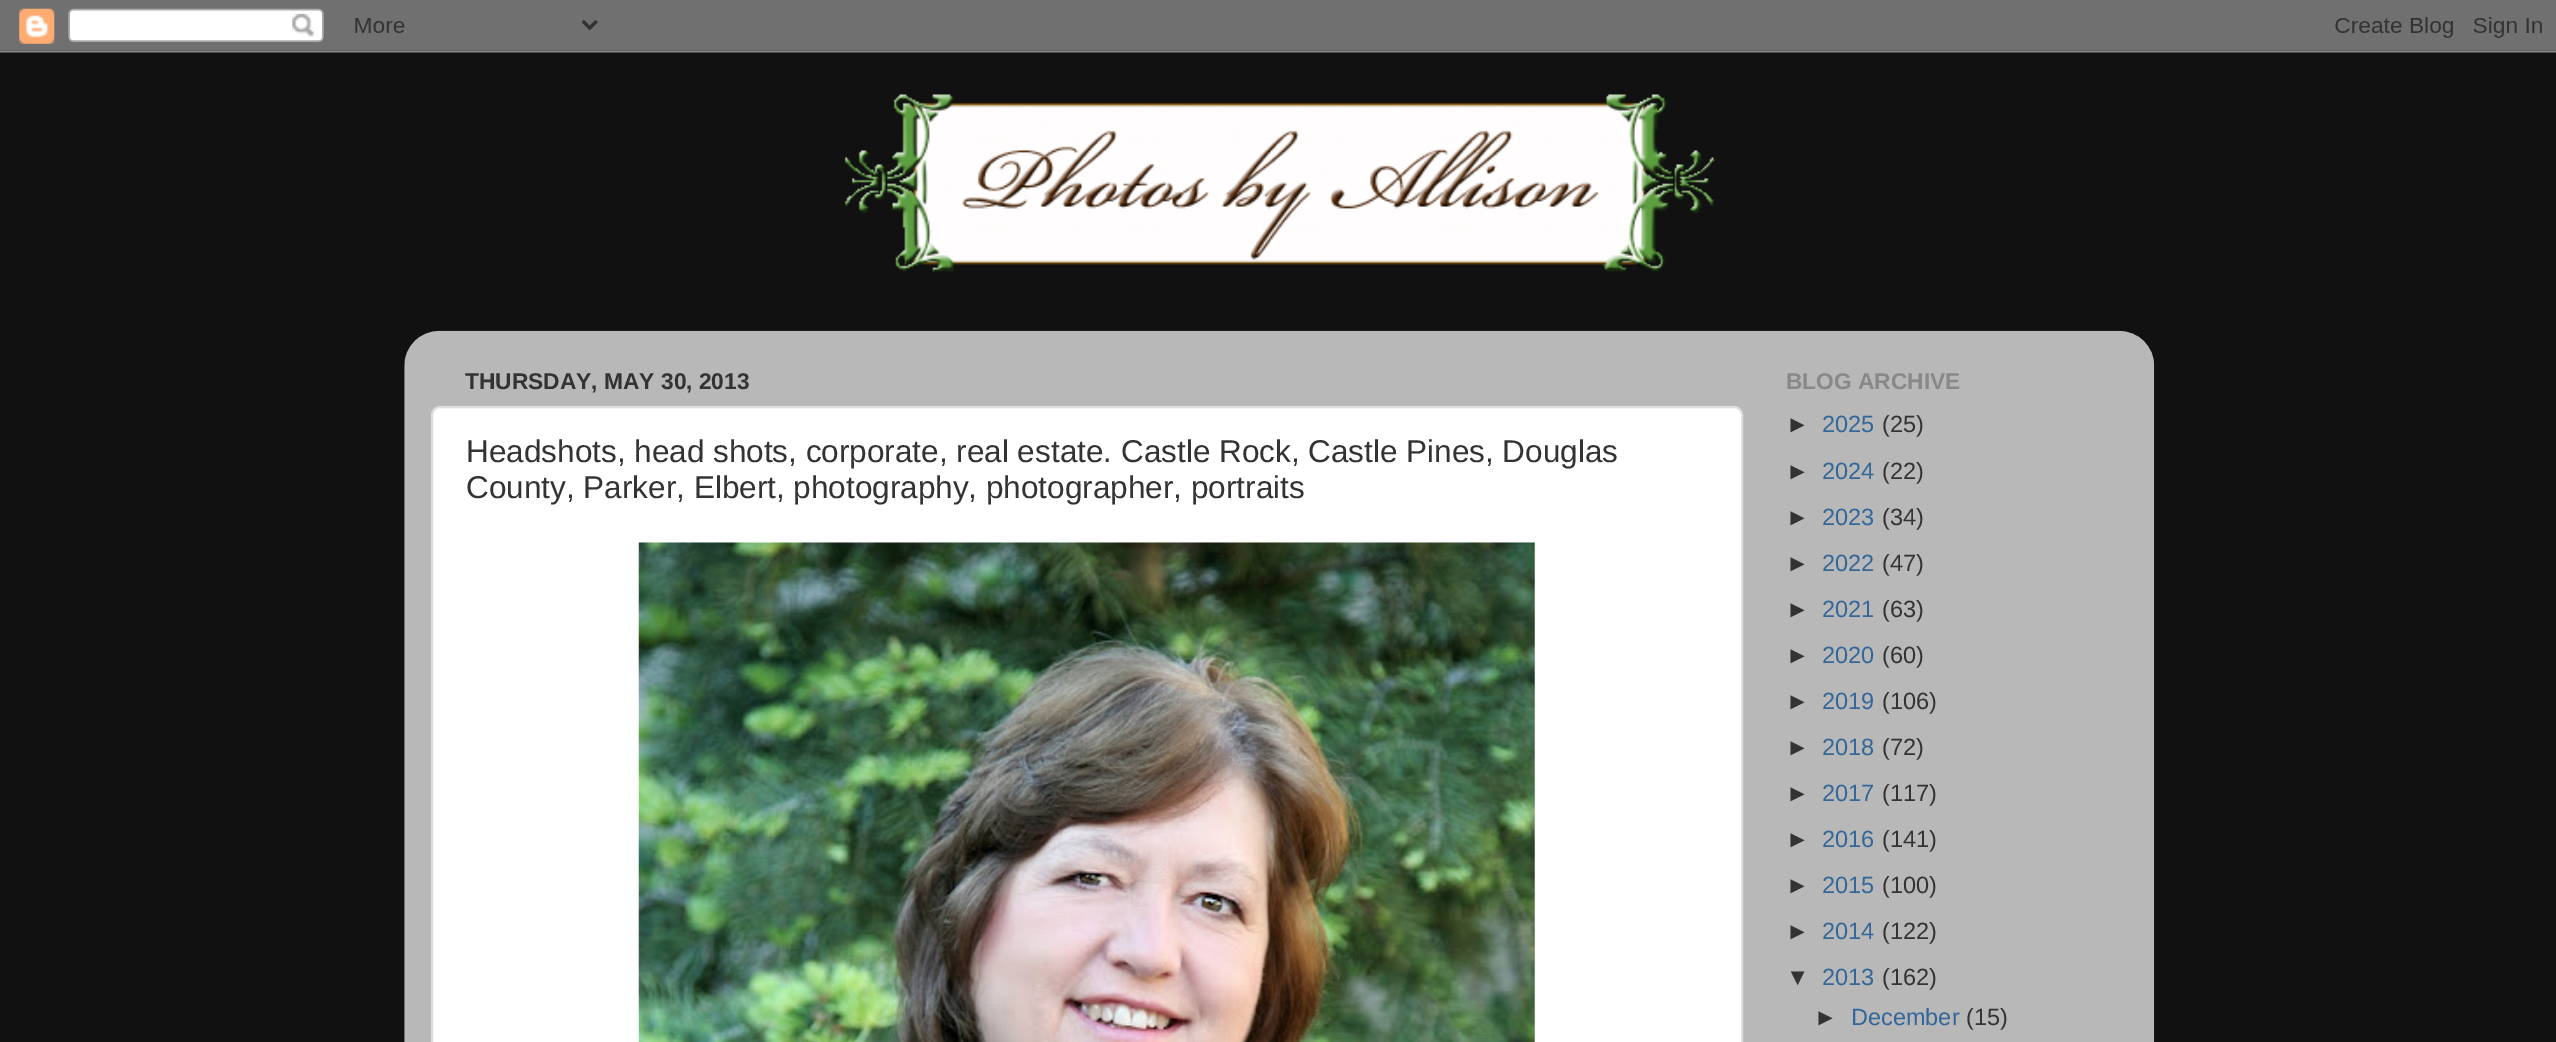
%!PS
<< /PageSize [2556 1042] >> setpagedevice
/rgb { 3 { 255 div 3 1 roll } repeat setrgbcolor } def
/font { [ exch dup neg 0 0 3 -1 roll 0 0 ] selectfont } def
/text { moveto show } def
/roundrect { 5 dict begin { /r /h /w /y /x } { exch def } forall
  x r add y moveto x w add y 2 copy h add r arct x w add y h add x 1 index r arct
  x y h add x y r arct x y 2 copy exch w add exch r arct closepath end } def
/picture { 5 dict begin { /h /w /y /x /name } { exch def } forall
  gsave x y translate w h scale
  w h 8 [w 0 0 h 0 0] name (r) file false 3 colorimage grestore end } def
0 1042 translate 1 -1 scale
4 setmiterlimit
17 17 17 rgb
0 0 2556 1042 rectfill
(img_01.rgb) 0 0 2556 53 picture
(img_02.rgb) 844 94 872 178 picture
(img_03.rgb) 404 330 1751 712 picture
255 255 255 rgb
432 407 1310 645 8 roundrect gsave fill grestore
221 221 221 rgb
2 setlinewidth
stroke
(img_04.rgb) 638 542 897 500 picture
/LiberationSans-Bold 22.75 font
51 51 51 rgb
(THURSDAY, MAY 30, 2013) 465 389 text
/LiberationSans-Regular 31.5 font
(Headshots, head shots, corporate, real estate. Castle Rock, Castle Pines, Douglas) 466 462 text
(County, Parker, Elbert, photography, photographer, portraits) 466 498 text
/LiberationSans-Bold 22.75 font
136 136 136 rgb
(BLOG ARCHIVE) 1786 389 text
/LiberationSans-Regular 23.5 font
51 51 51 rgb
(►) 1786 432 text
51 102 153 rgb
(2025) 1822 432 text
51 51 51 rgb
(\(25\)) 1882 432 text
(►) 1786 479 text
51 102 153 rgb
(2024) 1822 479 text
51 51 51 rgb
(\(22\)) 1882 479 text
(►) 1786 525 text
51 102 153 rgb
(2023) 1822 525 text
51 51 51 rgb
(\(34\)) 1882 525 text
(►) 1786 571 text
51 102 153 rgb
(2022) 1822 571 text
51 51 51 rgb
(\(47\)) 1882 571 text
(►) 1786 617 text
51 102 153 rgb
(2021) 1822 617 text
51 51 51 rgb
(\(63\)) 1882 617 text
(►) 1786 663 text
51 102 153 rgb
(2020) 1822 663 text
51 51 51 rgb
(\(60\)) 1882 663 text
(►) 1786 709 text
51 102 153 rgb
(2019) 1822 709 text
51 51 51 rgb
(\(106\)) 1882 709 text
(►) 1786 755 text
51 102 153 rgb
(2018) 1822 755 text
51 51 51 rgb
(\(72\)) 1882 755 text
(►) 1786 801 text
51 102 153 rgb
(2017) 1822 801 text
51 51 51 rgb
(\(117\)) 1882 801 text
(►) 1786 847 text
51 102 153 rgb
(2016) 1822 847 text
51 51 51 rgb
(\(141\)) 1882 847 text
(►) 1786 893 text
51 102 153 rgb
(2015) 1822 893 text
51 51 51 rgb
(\(100\)) 1882 893 text
(►) 1786 939 text
51 102 153 rgb
(2014) 1822 939 text
51 51 51 rgb
(\(122\)) 1882 939 text
(▼) 1786 985 text
51 102 153 rgb
(2013) 1822 985 text
51 51 51 rgb
(\(162\)) 1882 985 text
(►) 1814 1025 text
51 102 153 rgb
(December) 1851 1025 text
51 51 51 rgb
(\(15\)) 1966 1025 text
showpage
